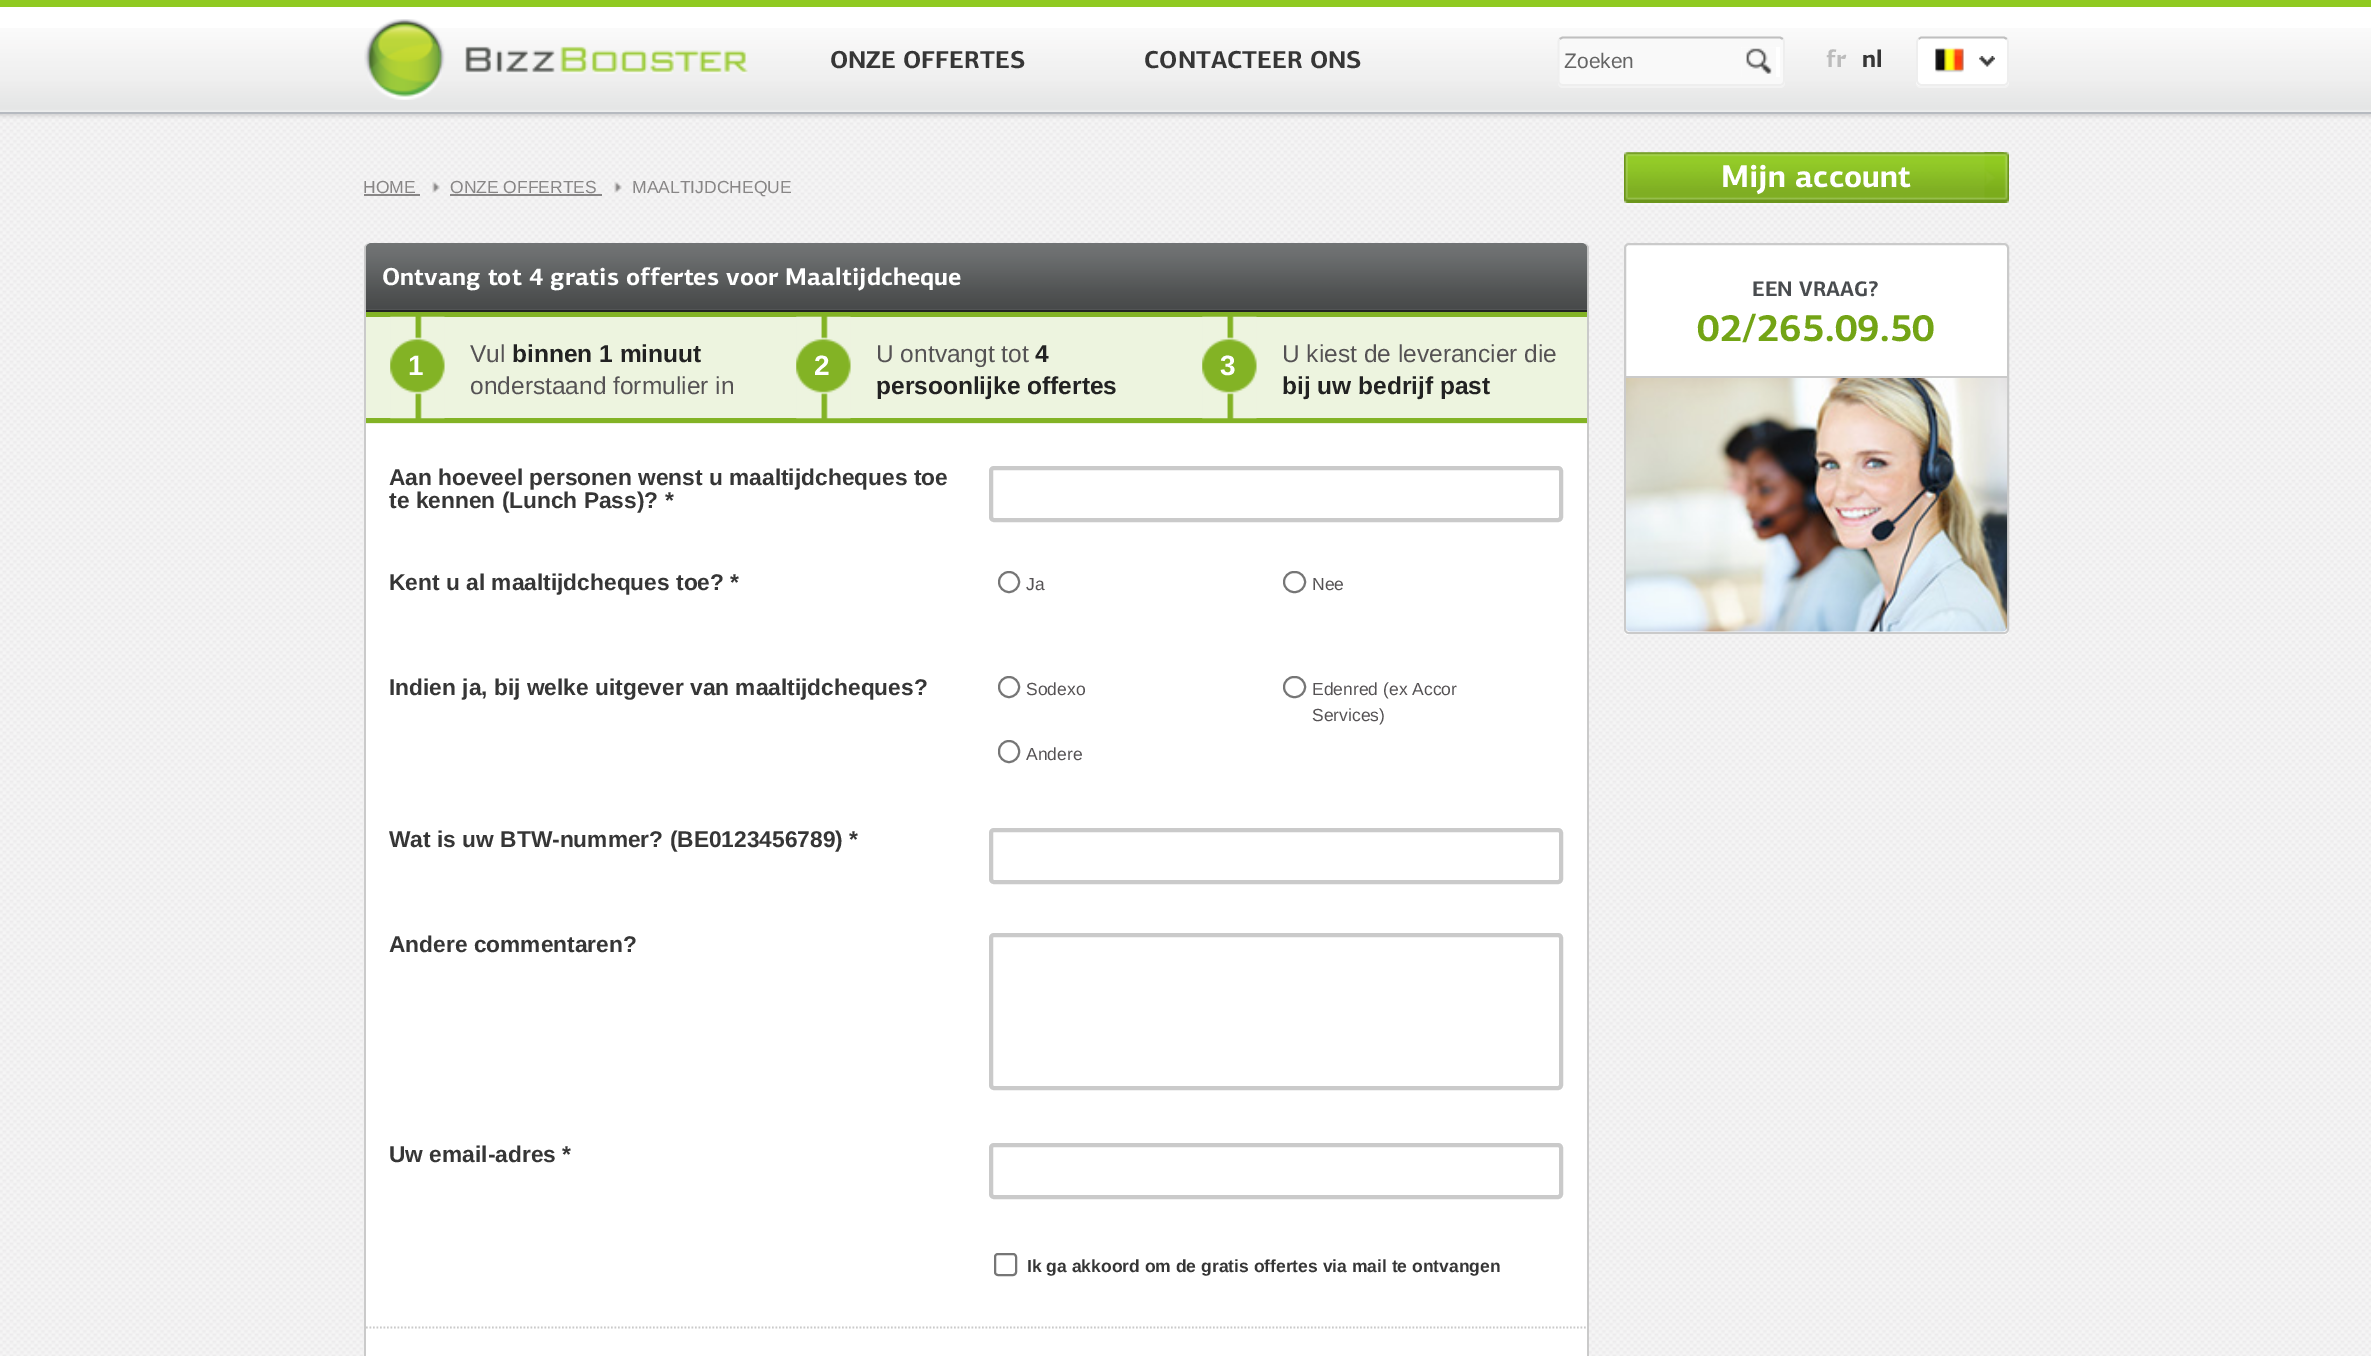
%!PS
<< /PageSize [2371 1356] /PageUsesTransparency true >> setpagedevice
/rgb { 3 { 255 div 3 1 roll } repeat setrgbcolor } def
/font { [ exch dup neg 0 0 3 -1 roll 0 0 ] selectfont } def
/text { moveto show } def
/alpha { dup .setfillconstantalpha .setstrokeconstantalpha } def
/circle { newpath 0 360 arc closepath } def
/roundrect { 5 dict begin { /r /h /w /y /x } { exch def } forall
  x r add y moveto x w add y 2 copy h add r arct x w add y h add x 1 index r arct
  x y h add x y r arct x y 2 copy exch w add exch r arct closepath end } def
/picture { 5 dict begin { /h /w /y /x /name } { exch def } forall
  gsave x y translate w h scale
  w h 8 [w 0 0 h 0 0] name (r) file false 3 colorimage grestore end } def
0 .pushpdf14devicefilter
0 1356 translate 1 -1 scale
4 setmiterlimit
255 255 255 rgb
0 0 2371 1356 rectfill
(img_01.rgb) 0 114 2371 1242 picture
(img_02.rgb) 0 28 2371 84 picture
144 202 33 rgb
0 0 2371 7 rectfill
182 186 192 rgb
0 112 2371 2 rectfill
(img_03.rgb) 364 19 384 81 picture
243 243 243 rgb
1558 83 moveto 0 3 2 5 5 5 rcurveto 217 0 rlineto 3 0 5 -2 5 -5 rcurveto 0 -3 rlineto 0 3 -2 6 -5 6 rcurveto -217 0 rlineto -2 0 -4 -1 -5 -3 rcurveto closepath fill
249 249 249 rgb
1558 37 227 49 5 roundrect fill
191 191 191 rgb
1.8 setlinewidth
1559.5 39 moveto 3 -1.5 rlineto 181 0 rlineto 36.5 0 rlineto 3 1.5 rlineto stroke
238 238 238 rgb
1783 39 moveto 0.5 0.5 1 2 1 3 rcurveto 0 38.5 rlineto 0 1 -0.5 2.5 -1 3 rcurveto -1 1 -2 1.5 -3 1.5 rcurveto -217 0 rlineto -1.5 0 -2.5 -0.5 -3.5 -1.5 rcurveto -0.5 -0.5 -1 -2 -1 -3 rcurveto 0 -38.5 rlineto 0 -1 0.5 -2.5 1 -3 rcurveto stroke
255 255 255 rgb
1741 47 39 30 rectfill
(img_04.rgb) 1741 47 35 30 picture
243 243 243 rgb
1916 42 moveto 0 41 rlineto 0 3 2 5 5 5 rcurveto 83 0 rlineto 3 0 5 -2 5 -5 rcurveto 0 -3 rlineto 0 3 -2 6 -5 6 rcurveto -82 0 rlineto -3 0 -6 -3 -6 -6 rcurveto closepath fill
255 255 255 rgb
1916 37 93 49 5 roundrect fill
(img_05.rgb) 1979 56 16 11 picture
191 191 191 rgb
1918.5 39 moveto 2.5 -1.5 rlineto 83 0 rlineto 3 1.5 rlineto stroke
238 238 238 rgb
2007 39 moveto 0.5 0.5 1 2 1 3 rcurveto 0 38.5 rlineto 0 1 -0.5 2.5 -1 3 rcurveto -1 1 -2 1.5 -3 1.5 rcurveto -82.5 0 rlineto -1 0 -2.5 -0.5 -3 -1.5 rcurveto -1 -0.5 -1.5 -2 -1.5 -3 rcurveto 0 -38.5 rlineto 0 -1 0.5 -2.5 1.5 -3 rcurveto stroke
(img_06.rgb) 1935 47 29 26 picture
(img_07.rgb) 0 114 2371 5 picture
136 134 134 rgb
364 194 56 2 rectfill
(img_08.rgb) 432 181 8 12 picture
450 194 152 2 rectfill
(img_09.rgb) 614 181 8 12 picture
0.3 alpha
255 255 255 rgb
1624 203 385 2 rectfill
1 alpha
(img_10.rgb) 1984 152 25 51 picture
(img_11.rgb) 1624 152 380 51 picture
364 243 1225 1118 5 roundrect fill
202 202 202 rgb
369 243 moveto 1215 0 rlineto 3 0 5 3 5 5 rcurveto 0 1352 rlineto 0 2 -2 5 -5 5 rcurveto -1215 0 rlineto -3 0 -5 -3 -5 -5 rcurveto 0 -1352 rlineto 0 -2 2 -5 5 -5 rcurveto closepath 369 243 moveto 1215 0 rlineto 2 0 3 3 3 5 rcurveto 0 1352 rlineto 0 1 -1 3 -3 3 rcurveto -1215 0 rlineto -2 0 -3 -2 -3 -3 rcurveto 0 -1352 rlineto 0 -2 1 -5 3 -5 rcurveto closepath eofill
113 116 117 rgb
371 243 moveto 1211 0 rlineto 3 0 5 2 5 5 rcurveto 0 64 rlineto -1221 0 rlineto 0 -64 rlineto 0 -3 2 -5 5 -5 rcurveto closepath fill
(img_12.rgb) 365 243 1223 67 picture
34 35 35 rgb
366 310 1221 2 rectfill
237 244 223 rgb
366 317 1221 107 rectfill
131 179 37 rgb
366 312 1221 5 rectfill
366 418 1221 5 rectfill
(img_13.rgb) 390 316 55 103 picture
(img_13.rgb) 796 316 55 103 picture
(img_13.rgb) 1202 316 55 103 picture
202 202 202 rgb
[1.75 1.75] 0 setdash
366 1327.5 moveto 1221 0 rlineto stroke
4 setlinewidth
[] 0 setdash
991 468 570 52 3 roundrect stroke
118 118 118 rgb
2 setlinewidth
1009 582 10 circle stroke
1284 572 21 20 10 roundrect stroke
1009 687 10 circle stroke
1284 677 21 20 10 roundrect stroke
999 741 20 21 10 roundrect stroke
202 202 202 rgb
4 setlinewidth
991 830 570 52 3 roundrect stroke
991 935 570 153 3 roundrect stroke
991 1145 570 52 3 roundrect stroke
118 118 118 rgb
2 setlinewidth
995 1254 21 21 3 roundrect stroke
255 255 255 rgb
1624 628 moveto 0 2 rlineto 0 3 2 5 5 5 rcurveto 375 0 rlineto 3 0 5 -2 5 -5 rcurveto 0 -2 rlineto 0 3 -2 6 -5 6 rcurveto -375 0 rlineto -3 0 -5 -3 -5 -6 rcurveto closepath fill
1624 243 385 391 5 roundrect fill
(img_14.rgb) 1624 627 385 3 picture
202 202 202 rgb
1625 244 383 389 4 roundrect stroke
1626 376 381 2 rectfill
(img_15.rgb) 1626 378 382 254 picture
/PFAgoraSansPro-Bold 24.5 font
54 54 54 rgb
(ONZE OFFERTES) 830 68 text
(CONTACTEER ONS) 1144 68 text
/LiberationSans-Regular 21 font
101 101 101 rgb
(Zoeken) 1564 68 text
/PFAgoraSansPro-Bold 24.5 font
188 188 188 rgb
(fr) 1826 67 text
54 54 54 rgb
(nl) 1862 67 text
/LiberationSans-Regular 17.5 font
136 134 134 rgb
(HOME) 363 193 text
(ONZE OFFERTES) 450 193 text
(MAALTIJDCHEQUE) 632 193 text
/PFAgoraSansPro-Bold 31.5 font
255 255 255 rgb
(Mijn account) 1721 187 text
/PFAgoraSansPro-Bold 24.5 font
(Ontvang tot 4 gratis offertes voor Maaltijdcheque) 382 285 text
/LiberationSans-Bold 28 font
(1) 408 375 text
/LiberationSans-Regular 24.5 font
85 82 84 rgb
(Vul) 470 362 text
/LiberationSans-Bold 24.5 font
34 34 34 rgb
(binnen 1 minuut) 512 362 text
/LiberationSans-Regular 24.5 font
85 82 84 rgb
(onderstaand formulier in) 470 394 text
/LiberationSans-Bold 28 font
255 255 255 rgb
(2) 814 375 text
/LiberationSans-Regular 24.5 font
85 82 84 rgb
(U ontvangt tot) 876 362 text
/LiberationSans-Bold 24.5 font
34 34 34 rgb
(4) 1035 362 text
(persoonlijke offertes) 876 394 text
/LiberationSans-Bold 28 font
255 255 255 rgb
(3) 1220 375 text
/LiberationSans-Regular 24.5 font
85 82 84 rgb
(U kiest de leverancier die) 1282 362 text
/LiberationSans-Bold 24.5 font
34 34 34 rgb
(bij uw bedrijf past) 1282 394 text
/LiberationSans-Bold 22.75 font
54 54 54 rgb
(Aan hoeveel personen wenst u maaltijdcheques toe) 389 485 text
(te kennen \(Lunch Pass\)? *) 389 508 text
(Kent u al maaltijdcheques toe? *) 389 590 text
/LiberationSans-Regular 17.5 font
85 82 84 rgb
(Ja) 1026 590 text
(Nee) 1312 590 text
/LiberationSans-Bold 22.75 font
54 54 54 rgb
(Indien ja, bij welke uitgever van maaltijdcheques?) 389 695 text
/LiberationSans-Regular 17.5 font
85 82 84 rgb
(Sodexo) 1026 695 text
(Edenred \(ex Accor) 1312 695 text
(Services\)) 1312 721 text
(Andere) 1026 760 text
/LiberationSans-Bold 22.75 font
54 54 54 rgb
(Wat is uw BTW-nummer? \(BE0123456789\) *) 389 847 text
(Andere commentaren?) 389 952 text
(Uw email-adres *) 389 1162 text
/LiberationSans-Bold 17.5 font
(Ik ga akkoord om de gratis offertes via mail te ontvangen) 1027 1272 text
/PFAgoraSansPro-Bold 21 font
73 76 79 rgb
(EEN VRAAG?) 1752 296 text
/PFAgoraSansPro-Bold 38.5 font
115 164 21 rgb
(02/265.09.50) 1697 341 text
.poppdf14devicefilter showpage
